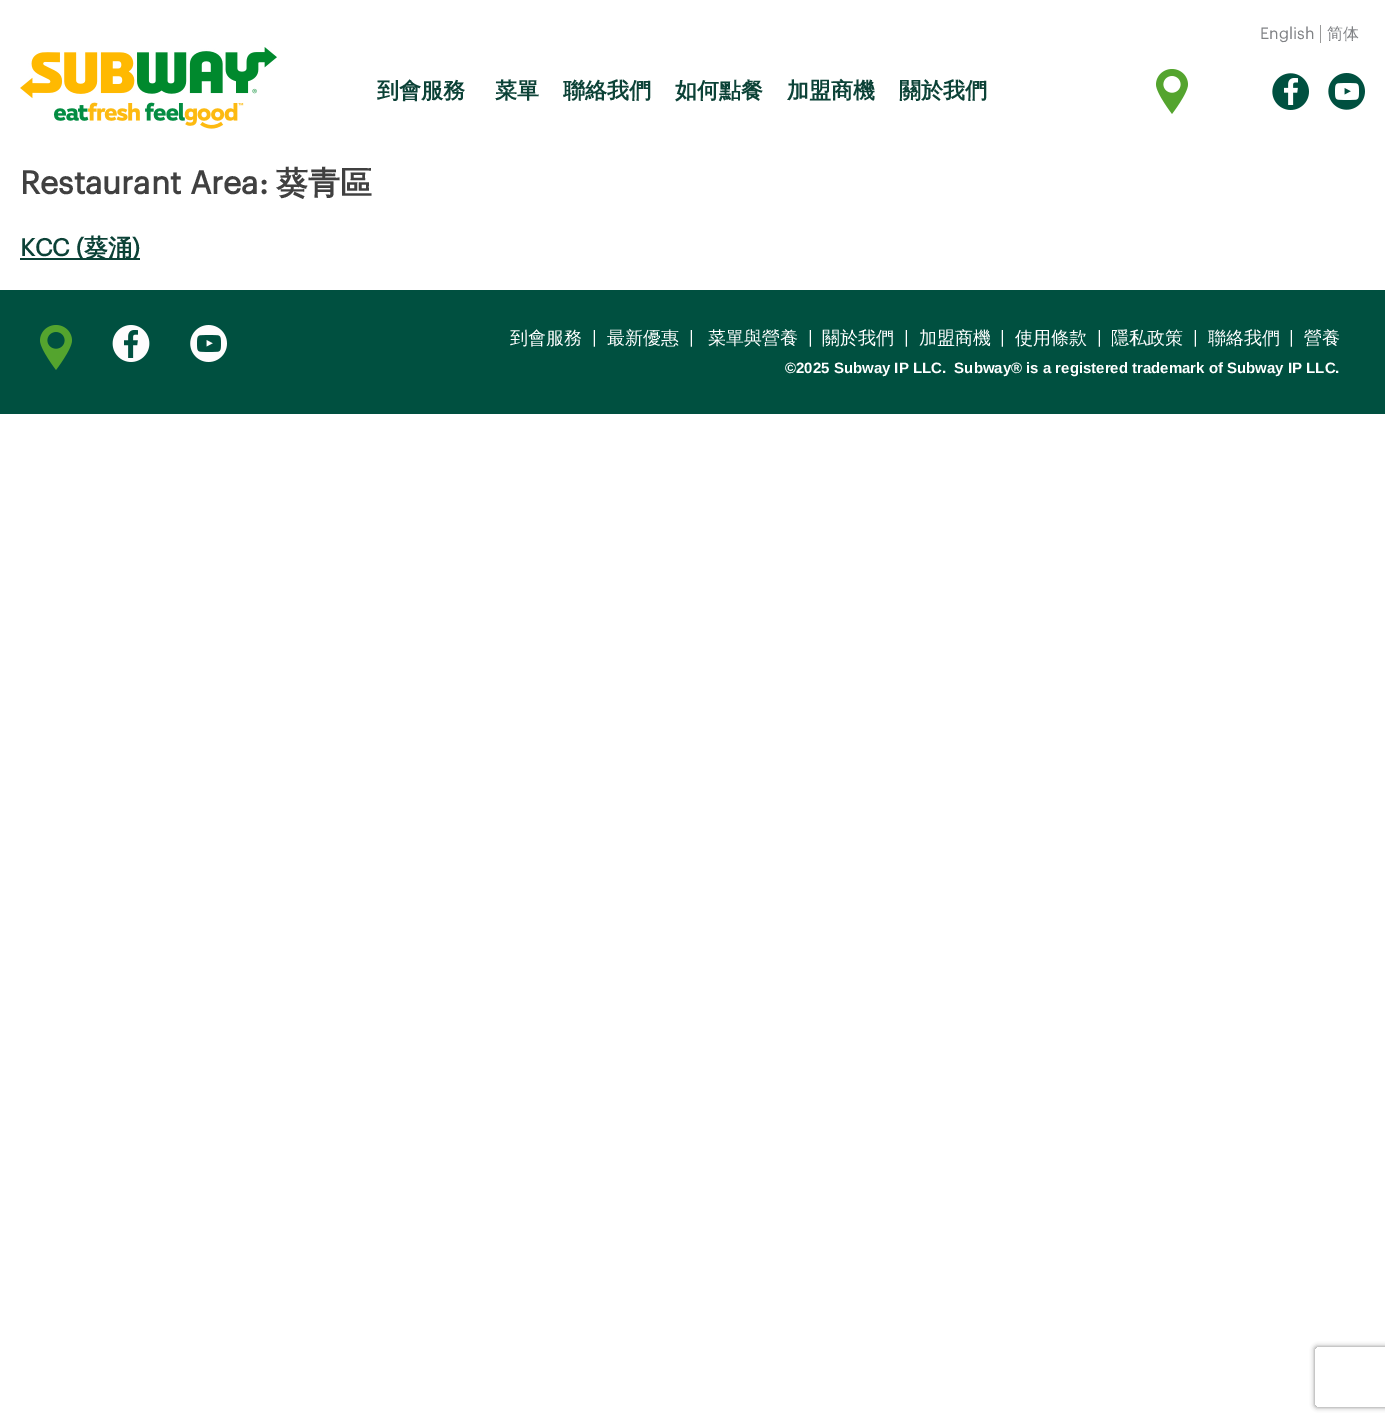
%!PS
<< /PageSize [1385 1421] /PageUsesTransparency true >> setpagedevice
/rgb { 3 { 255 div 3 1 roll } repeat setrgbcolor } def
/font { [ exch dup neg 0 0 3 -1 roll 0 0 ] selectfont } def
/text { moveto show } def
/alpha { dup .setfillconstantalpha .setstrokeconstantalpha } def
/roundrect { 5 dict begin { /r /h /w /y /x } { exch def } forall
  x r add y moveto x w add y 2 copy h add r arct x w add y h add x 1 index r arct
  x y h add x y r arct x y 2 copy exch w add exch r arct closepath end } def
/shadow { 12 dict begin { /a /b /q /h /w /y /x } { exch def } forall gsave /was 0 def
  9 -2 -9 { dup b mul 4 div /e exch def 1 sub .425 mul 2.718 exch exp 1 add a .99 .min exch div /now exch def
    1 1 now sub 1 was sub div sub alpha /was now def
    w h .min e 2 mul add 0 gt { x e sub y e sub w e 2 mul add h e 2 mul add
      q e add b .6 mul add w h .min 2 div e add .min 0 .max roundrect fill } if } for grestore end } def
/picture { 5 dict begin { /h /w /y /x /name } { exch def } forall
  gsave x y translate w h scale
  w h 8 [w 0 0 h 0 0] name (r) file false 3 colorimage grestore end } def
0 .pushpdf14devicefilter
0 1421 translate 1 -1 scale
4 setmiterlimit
255 255 255 rgb
0 0 1385 1421 rectfill
(img_01.rgb) 20 47 257 82 picture
153 153 153 rgb
1320 25 1 18 rectfill
(img_02.rgb) 1156 69 32 45 picture
(img_03.rgb) 1272 73 37 37 picture
(img_04.rgb) 1328 73 37 37 picture
12 66 55 rgb
20 258 120 2 rectfill
0 80 64 rgb
0 290 1385 124 rectfill
(img_05.rgb) 40 325 32 45 picture
(img_06.rgb) 112 325 38 37 picture
(img_07.rgb) 190 325 37 37 picture
gsave
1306 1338 moveto 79 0 rlineto 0 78 rlineto -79 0 rlineto closepath 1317 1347 moveto 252 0 rlineto 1 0 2 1 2 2 rcurveto 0 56 rlineto 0 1 -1 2 -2 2 rcurveto -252 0 rlineto -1 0 -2 -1 -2 -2 rcurveto 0 -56 rlineto 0 -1 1 -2 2 -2 rcurveto closepath eoclip newpath
128 128 128 rgb
1315 1347 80 60 2 2.5 1 shadow
grestore
/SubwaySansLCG-Regular 16 font
128 130 133 rgb
(English) 1260 39 text
/WenQuanYiZenHei-Medium 16 font
(简体) 1327 39 text
/WenQuanYiZenHei-Bold 22 font
12 66 55 rgb
(到會服務) 377 98 text
(菜單) 495 98 text
(聯絡我們) 563 98 text
(如何點餐) 675 98 text
(加盟商機) 787 98 text
(關於我們) 899 98 text
/SubwaySansLCG-Bold 32 font
64 64 64 rgb
(Restaurant Area:) 20 194 text
/WenQuanYiZenHei-Bold 32 font
(葵青區) 276 194 text
/SubwaySansLCG-Bold 24 font
12 66 55 rgb
(KCC \() 20 256 text
/WenQuanYiZenHei-Bold 24 font
(葵涌) 84 256 text
/SubwaySansLCG-Bold 24 font
(\)) 132 256 text
/WenQuanYiZenHei-Medium 18 font
255 255 255 rgb
(到會服務) 510 344 text
/SubwaySansLCG-Regular 18 font
(|) 592 344 text
/WenQuanYiZenHei-Medium 18 font
(最新優惠) 607 344 text
/SubwaySansLCG-Regular 18 font
(|) 689 344 text
/WenQuanYiZenHei-Medium 18 font
(菜單與營養) 708 344 text
/SubwaySansLCG-Regular 18 font
(|) 808 344 text
/WenQuanYiZenHei-Medium 18 font
(關於我們) 822 344 text
/SubwaySansLCG-Regular 18 font
(|) 904 344 text
/WenQuanYiZenHei-Medium 18 font
(加盟商機) 919 344 text
/SubwaySansLCG-Regular 18 font
(|) 1000 344 text
/WenQuanYiZenHei-Medium 18 font
(使用條款) 1015 344 text
/SubwaySansLCG-Regular 18 font
(|) 1097 344 text
/WenQuanYiZenHei-Medium 18 font
(隱私政策) 1111 344 text
/SubwaySansLCG-Regular 18 font
(|) 1193 344 text
/WenQuanYiZenHei-Medium 18 font
(聯絡我們) 1208 344 text
/SubwaySansLCG-Regular 18 font
(|) 1289 344 text
/WenQuanYiZenHei-Medium 18 font
(營養) 1304 344 text
/LiberationSans-Bold 15 font
(©2025 Subway IP LLC.  Subway® is a registered trademark of Subway IP LLC.) 785 373 text
.poppdf14devicefilter showpage
